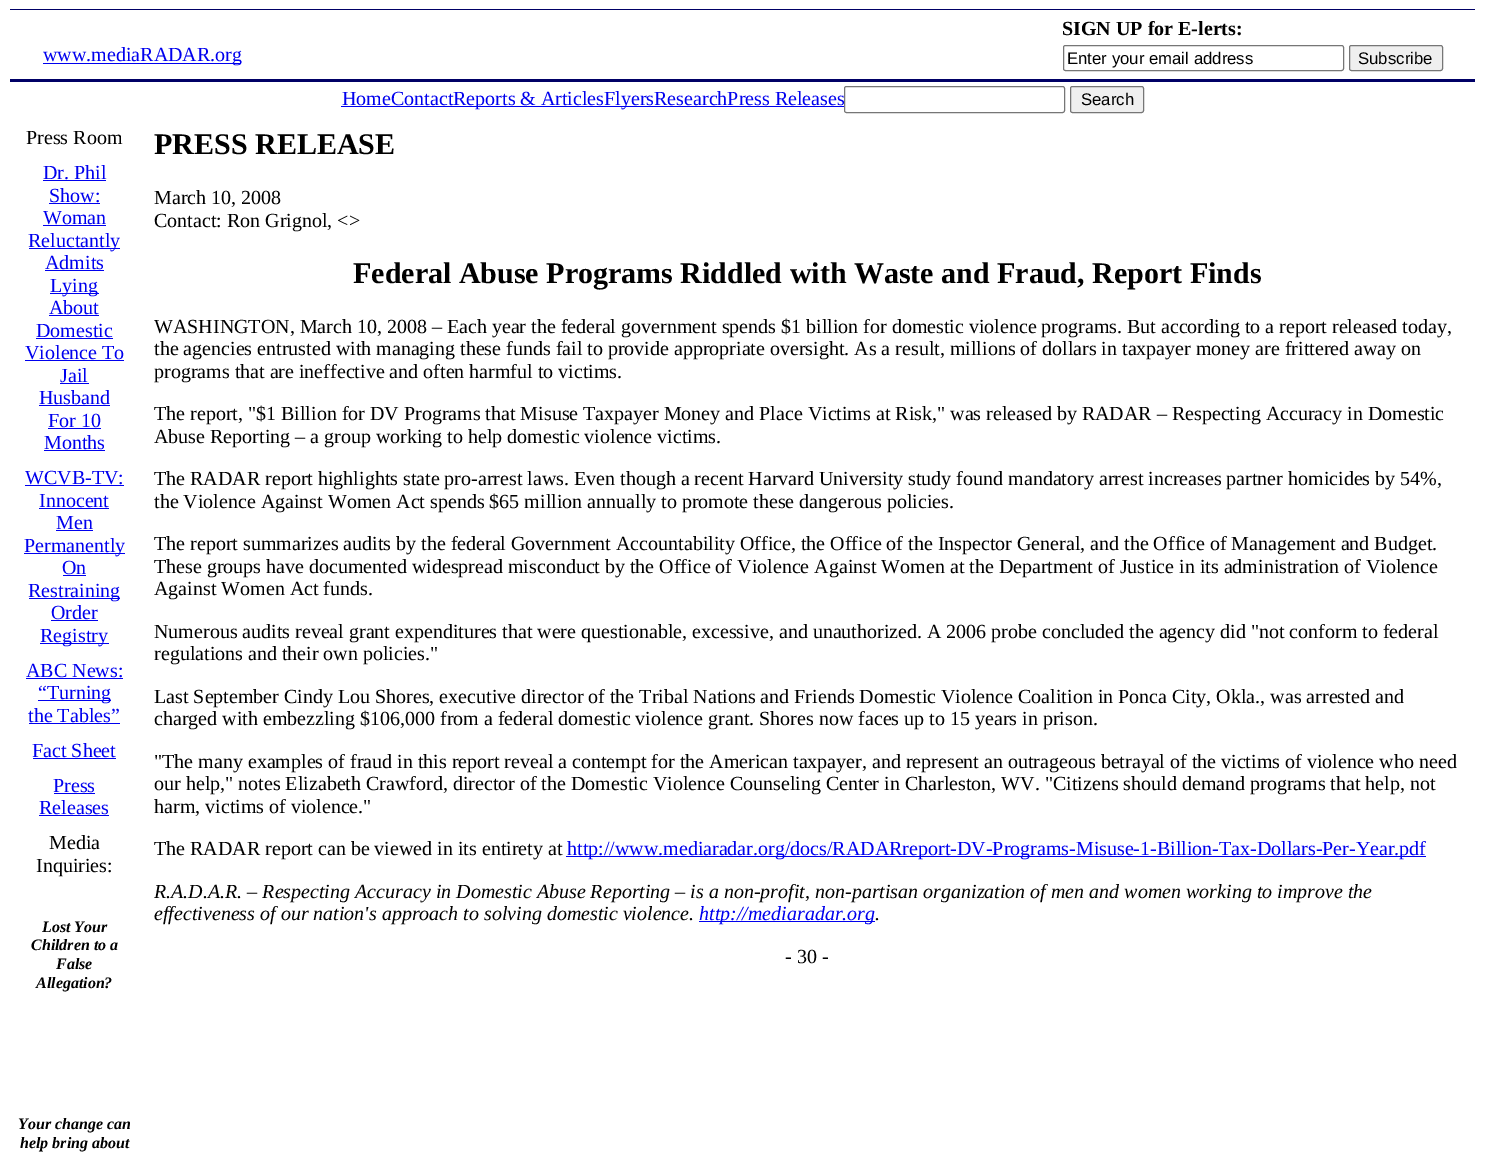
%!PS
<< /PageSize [1485 1158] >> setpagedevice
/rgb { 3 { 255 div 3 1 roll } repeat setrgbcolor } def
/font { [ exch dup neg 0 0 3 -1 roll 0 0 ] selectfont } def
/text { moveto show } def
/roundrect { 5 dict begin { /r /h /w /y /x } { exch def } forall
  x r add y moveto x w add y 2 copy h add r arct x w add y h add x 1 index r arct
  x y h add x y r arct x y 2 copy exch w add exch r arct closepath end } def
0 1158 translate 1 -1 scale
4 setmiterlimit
255 255 255 rgb
0 0 1485 1158 rectfill
0 0 102 rgb
10 9 1465 1 rectfill
10 79 1465 3 rectfill
0 0 238 rgb
43 63 198 1 rectfill
118 118 118 rgb
1063.5 45.5 280 25 2 roundrect stroke
239 239 239 rgb
1349.5 45.5 93 25 2 roundrect gsave fill grestore
118 118 118 rgb
stroke
0 0 238 rgb
341 106 503 1 rectfill
118 118 118 rgb
844.5 86.5 220 26 2 roundrect stroke
239 239 239 rgb
1070.5 86.5 73 26 2 roundrect gsave fill grestore
118 118 118 rgb
stroke
0 0 238 rgb
43 180 63 1 rectfill
49 203 51 1 rectfill
43 225 63 1 rectfill
29 248 91 1 rectfill
45 270 59 1 rectfill
50 293 49 1 rectfill
49 315 50 1 rectfill
36 338 77 1 rectfill
25 360 99 1 rectfill
60 383 29 1 rectfill
39 405 71 1 rectfill
48 428 53 1 rectfill
44 450 61 1 rectfill
25 485 99 1 rectfill
39 508 70 1 rectfill
56 530 37 1 rectfill
24 553 101 1 rectfill
63 575 23 1 rectfill
29 598 91 1 rectfill
51 620 47 1 rectfill
40 643 69 1 rectfill
26 678 97 1 rectfill
38 700 73 1 rectfill
29 723 91 1 rectfill
33 758 83 1 rectfill
54 793 41 1 rectfill
39 815 70 1 rectfill
566 856 860 1 rectfill
699 921 176 1 rectfill
/LiberationSerif-Regular 20 font
(www.mediaRADAR.org) 43 61 text
/LiberationSerif-Bold 20 font
0 0 0 rgb
(SIGN UP for E-lerts:) 1062 35 text
/LiberationSans-Regular 16.75 font
(Enter your email address) 1067 64 text
(Subscribe) 1358 64 text
/LiberationSerif-Regular 20 font
0 0 238 rgb
(HomeContactReports & ArticlesFlyersResearchPress Releases) 342 105 text
/LiberationSans-Regular 16.75 font
0 0 0 rgb
(Search) 1081 105 text
/LiberationSerif-Regular 20 font
(Press Room) 26 144 text
0 0 238 rgb
(Dr. Phil) 43 179 text
(Show:) 49 202 text
(Woman) 43 224 text
(Reluctantly) 28 247 text
(Admits) 45 269 text
(Lying) 50 292 text
(About) 49 314 text
(Domestic) 36 337 text
(Violence To) 25 359 text
(Jail) 60 382 text
(Husband) 39 404 text
(For 10) 48 427 text
(Months) 44 449 text
(WCVB-TV:) 25 484 text
(Innocent) 39 507 text
(Men) 56 529 text
(Permanently) 24 552 text
(On) 62 574 text
(Restraining) 28 597 text
(Order) 51 619 text
(Registry) 40 642 text
(ABC News:) 26 677 text
(“Turning) 38 699 text
(the Tables”) 28 722 text
(Fact Sheet) 32 757 text
(Press) 53 792 text
(Releases) 39 814 text
0 0 0 rgb
(Media) 49 849 text
(Inquiries:) 36 872 text
/LiberationSerif-BoldItalic 16 font
(Lost Your) 42 932 text
(Children to a) 31 950 text
(False) 56 969 text
(Allegation?) 36 988 text
(Your change can) 18 1129 text
(help bring about) 20 1148 text
/LiberationSerif-Bold 30 font
(PRESS RELEASE) 154 154 text
/LiberationSerif-Regular 20 font
(March 10, 2008) 154 204 text
(Contact: Ron Grignol, <>) 154 227 text
/LiberationSerif-Bold 30 font
(Federal Abuse Programs Riddled with Waste and Fraud, Report Finds) 353 283 text
/LiberationSerif-Regular 20 font
(WASHINGTON, March 10, 2008 – Each year the federal government spends $1 billion for domestic violence programs. But according to a report released today,) 154 333 text
(the agencies entrusted with managing these funds fail to provide appropriate oversight. As a result, millions of dollars in taxpayer money are frittered away on) 154 355 text
(programs that are ineffective and often harmful to victims.) 154 378 text
(The report, "$1 Billion for DV Programs that Misuse Taxpayer Money and Place Victims at Risk," was released by RADAR – Respecting Accuracy in Domestic) 154 420 text
(Abuse Reporting – a group working to help domestic violence victims.) 154 443 text
(The RADAR report highlights state pro-arrest laws. Even though a recent Harvard University study found mandatory arrest increases partner homicides by 54%,) 154 485 text
(the Violence Against Women Act spends $65 million annually to promote these dangerous policies.) 154 508 text
(The report summarizes audits by the federal Government Accountability Office, the Office of the Inspector General, and the Office of Management and Budget.) 154 550 text
(These groups have documented widespread misconduct by the Office of Violence Against Women at the Department of Justice in its administration of Violence) 154 573 text
(Against Women Act funds.) 154 595 text
(Numerous audits reveal grant expenditures that were questionable, excessive, and unauthorized. A 2006 probe concluded the agency did "not conform to federal) 154 638 text
(regulations and their own policies.") 154 660 text
(Last September Cindy Lou Shores, executive director of the Tribal Nations and Friends Domestic Violence Coalition in Ponca City, Okla., was arrested and) 154 703 text
(charged with embezzling $106,000 from a federal domestic violence grant. Shores now faces up to 15 years in prison.) 154 725 text
("The many examples of fraud in this report reveal a contempt for the American taxpayer, and represent an outrageous betrayal of the victims of violence who need) 154 768 text
(our help," notes Elizabeth Crawford, director of the Domestic Violence Counseling Center in Charleston, WV. "Citizens should demand programs that help, not) 154 790 text
(harm, victims of violence.") 154 813 text
(The RADAR report can be viewed in its entirety at) 154 855 text
0 0 238 rgb
(http://www.mediaradar.org/docs/RADARreport-DV-Programs-Misuse-1-Billion-Tax-Dollars-Per-Year.pdf) 567 855 text
/LiberationSerif-Italic 20 font
0 0 0 rgb
(R.A.D.A.R. – Respecting Accuracy in Domestic Abuse Reporting – is a non-profit, non-partisan organization of men and women working to improve the) 154 898 text
(effectiveness of our nation's approach to solving domestic violence.) 154 920 text
0 0 238 rgb
(http://mediaradar.org) 699 920 text
0 0 0 rgb
(.) 875 920 text
/LiberationSerif-Regular 20 font
(- 30 -) 785 963 text
showpage
